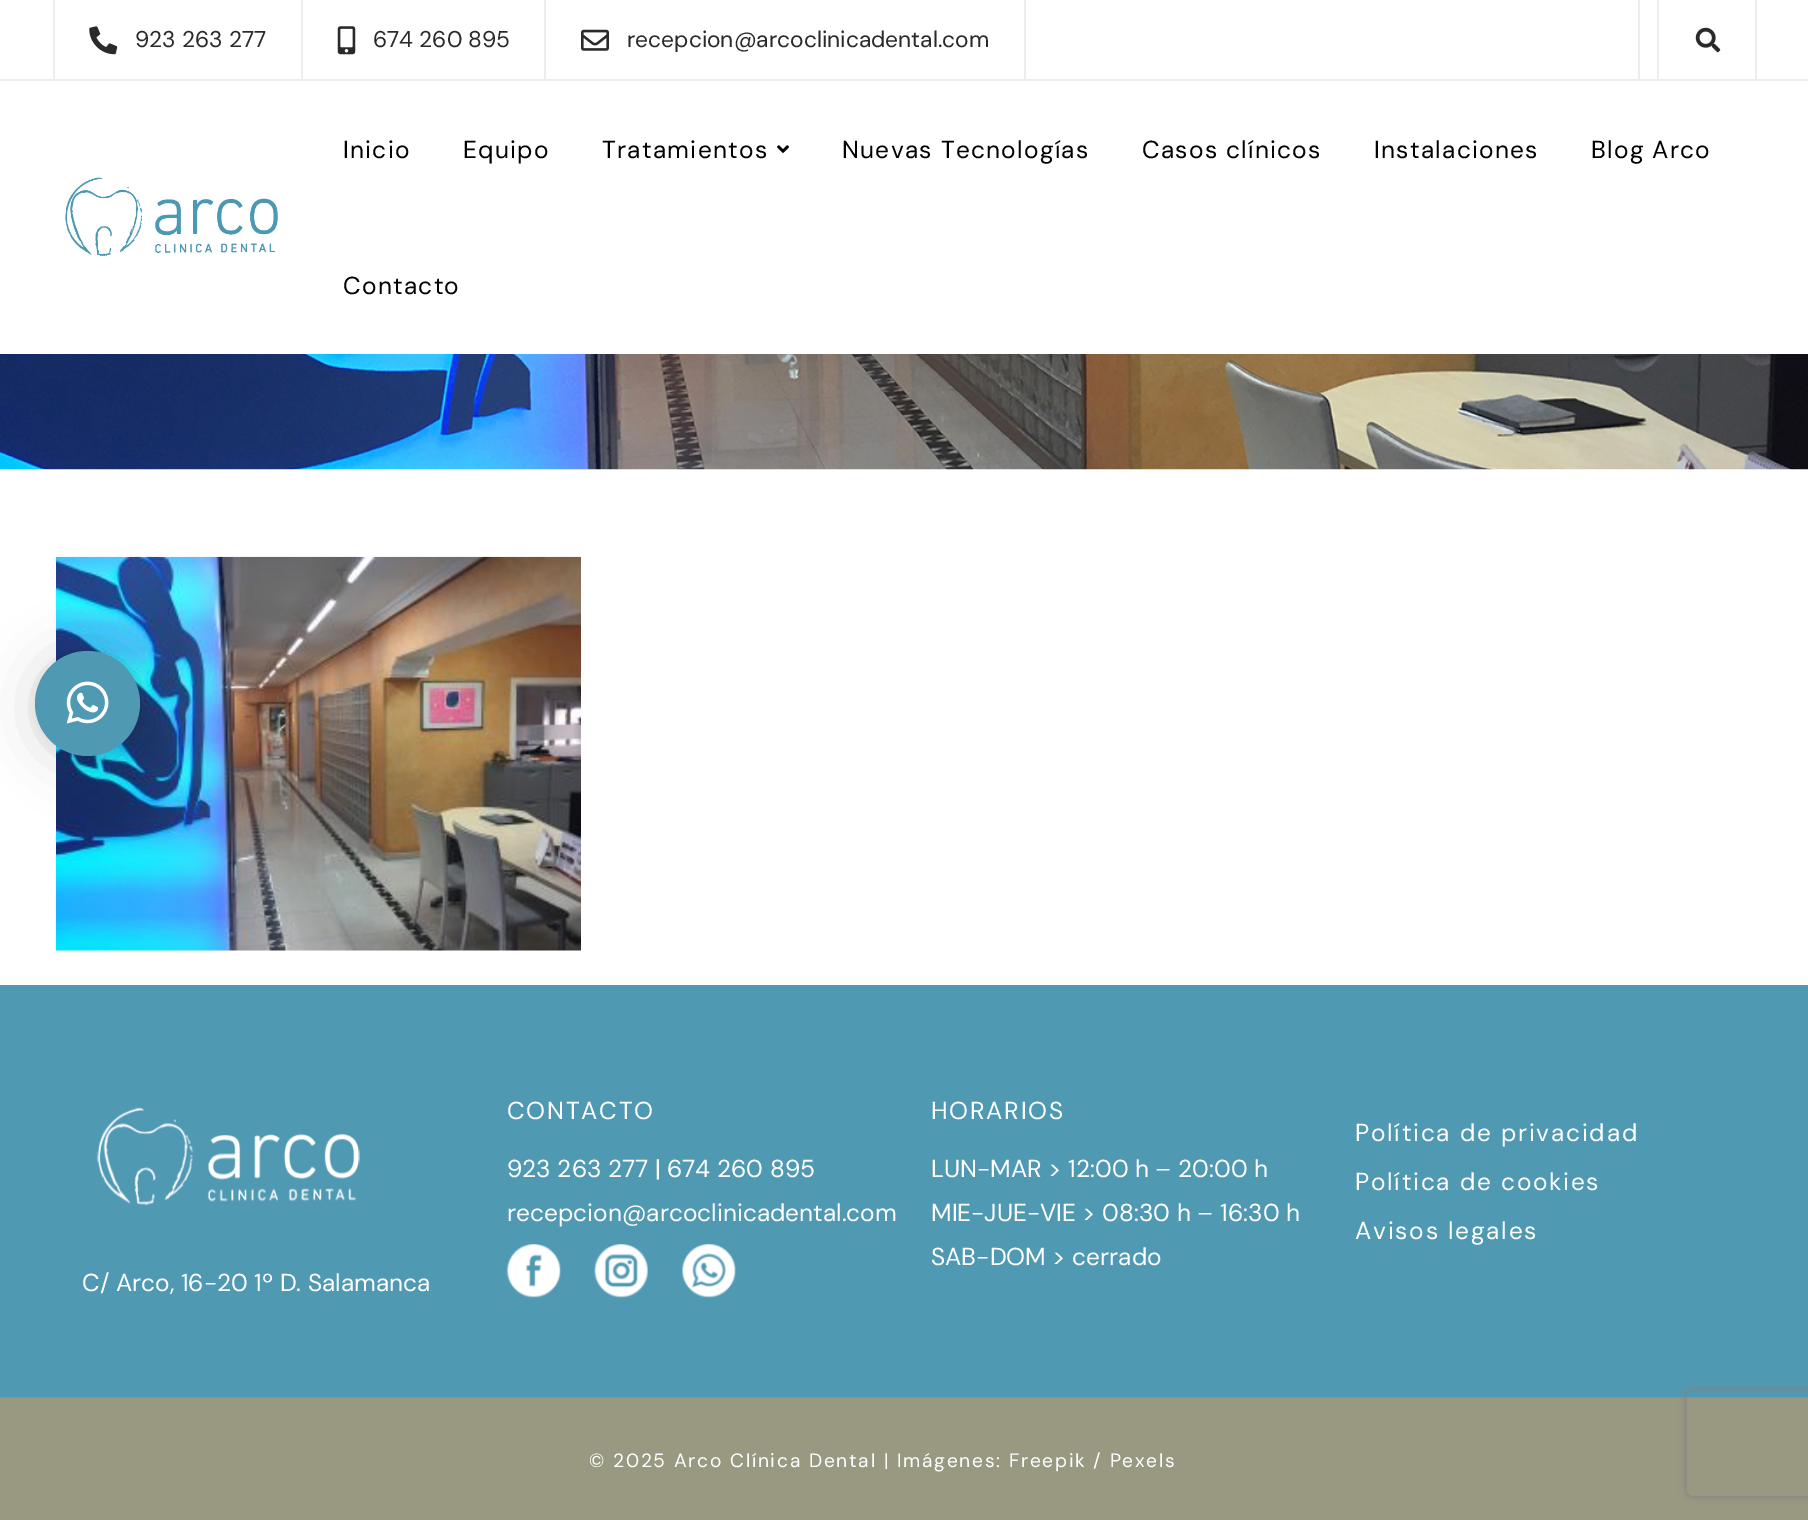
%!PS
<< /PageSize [1808 1520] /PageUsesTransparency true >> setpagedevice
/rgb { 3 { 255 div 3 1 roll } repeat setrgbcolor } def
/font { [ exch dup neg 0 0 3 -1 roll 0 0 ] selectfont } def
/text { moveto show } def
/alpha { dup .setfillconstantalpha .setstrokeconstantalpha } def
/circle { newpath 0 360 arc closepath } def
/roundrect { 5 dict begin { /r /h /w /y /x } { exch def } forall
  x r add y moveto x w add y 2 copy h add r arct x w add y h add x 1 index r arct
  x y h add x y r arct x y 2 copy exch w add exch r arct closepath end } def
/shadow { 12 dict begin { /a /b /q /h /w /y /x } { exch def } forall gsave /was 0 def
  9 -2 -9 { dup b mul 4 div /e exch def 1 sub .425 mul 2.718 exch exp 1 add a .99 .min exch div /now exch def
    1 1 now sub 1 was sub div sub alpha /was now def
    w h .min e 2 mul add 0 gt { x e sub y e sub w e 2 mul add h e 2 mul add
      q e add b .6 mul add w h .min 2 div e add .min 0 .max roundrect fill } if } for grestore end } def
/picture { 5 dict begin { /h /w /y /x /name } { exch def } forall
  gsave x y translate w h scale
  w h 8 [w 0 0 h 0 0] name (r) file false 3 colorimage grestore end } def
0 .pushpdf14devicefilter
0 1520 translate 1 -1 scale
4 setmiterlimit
80 153 179 rgb
0 0 1808 1520 rectfill
255 255 255 rgb
0 0 1808 354 rectfill
237 237 237 rgb
0 79 1808 2 rectfill
1024 0 2 79 rectfill
53 0 2 79 rectfill
301 0 2 79 rectfill
(img_01.rgb) 89 26 29 29 picture
544 0 2 79 rectfill
(img_02.rgb) 337 26 19 29 picture
(img_03.rgb) 581 29 28 22 picture
1638 0 2 79 rectfill
1755 0 2 79 rectfill
1657 0 2 79 rectfill
(img_04.rgb) 1695 27 26 26 picture
(img_05.rgb) 65 177 213 80 picture
(img_06.rgb) 777 145 12 8 picture
255 255 255 rgb
0 469 1808 516 rectfill
(img_07.rgb) 0 354 1808 116 picture
(img_08.rgb) 56 556 525 395 picture
0 0 0 rgb
35 655 105 105 52.5 28 0.16 shadow
35 653 105 105 52.5 5 0.06 shadow
80 153 179 rgb
87.5 703.5 52.5 circle fill
(img_09.rgb) 66 681 43 43 picture
(img_10.rgb) 506 1244 55 54 picture
(img_11.rgb) 594 1244 54 54 picture
(img_12.rgb) 681 1244 55 54 picture
(img_13.rgb) 96 1107 264 99 picture
153 153 130 rgb
0 1399 1808 121 rectfill
149 149 130 rgb
0 1397 1808 2 rectfill
gsave
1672 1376 moveto 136 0 rlineto 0 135 rlineto -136 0 rlineto closepath 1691 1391 moveto 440 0 rlineto 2 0 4 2 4 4 rcurveto 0 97 rlineto 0 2 -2 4 -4 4 rcurveto -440 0 rlineto -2 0 -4 -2 -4 -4 rcurveto 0 -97 rlineto 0 -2 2 -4 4 -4 rcurveto closepath eoclip newpath
128 128 128 rgb
1687 1391 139 105 4 4.5 1 shadow
grestore
/DMSans-Regular 22.75 font
42 42 42 rgb
(923 263 277) 135 47 text
(674 260 895) 373 47 text
(recepcion@arcoclinicadental.com) 627 47 text
/DMSans-Regular 24.5 font
0 0 0 rgb
343 158 moveto 1.25 0 (Inicio) ashow
463 158 moveto 1.25 0 (Equipo) ashow
602 158 moveto 1.25 0 (Tratamientos) ashow
842 158 moveto 1.25 0 (Nuevas Tecnologías) ashow
1142 158 moveto 1.25 0 (Casos clínicos) ashow
1374 158 moveto 1.25 0 (Instalaciones) ashow
1591 158 moveto 1.25 0 (Blog Arco) ashow
343 294 moveto 1.25 0 (Contacto) ashow
255 255 255 rgb
507 1119 moveto 1.75 0 (CONTACTO) ashow
(923 263 277 | 674 260 895) 507 1177 text
(recepcion@arcoclinicadental.com) 507 1221 text
931 1119 moveto 1.75 0 (HORARIOS) ashow
(LUN-MAR > 12:00 h – 20:00 h) 931 1177 text
(MIE-JUE-VIE > 08:30 h – 16:30 h) 931 1221 text
(SAB-DOM > cerrado) 931 1265 text
1355 1141 moveto 1.75 0 (Política de privacidad) ashow
1355 1190 moveto 1.75 0 (Política de cookies) ashow
1355 1239 moveto 1.75 0 (Avisos legales) ashow
(C/ Arco, 16-20 1º D. Salamanca) 82 1291 text
/DMSans-Regular 19.25 font
589 1467 moveto 1.75 0 (© 2025 Arco Clínica Dental | Imágenes: Freepik / Pexels) ashow
.poppdf14devicefilter showpage
